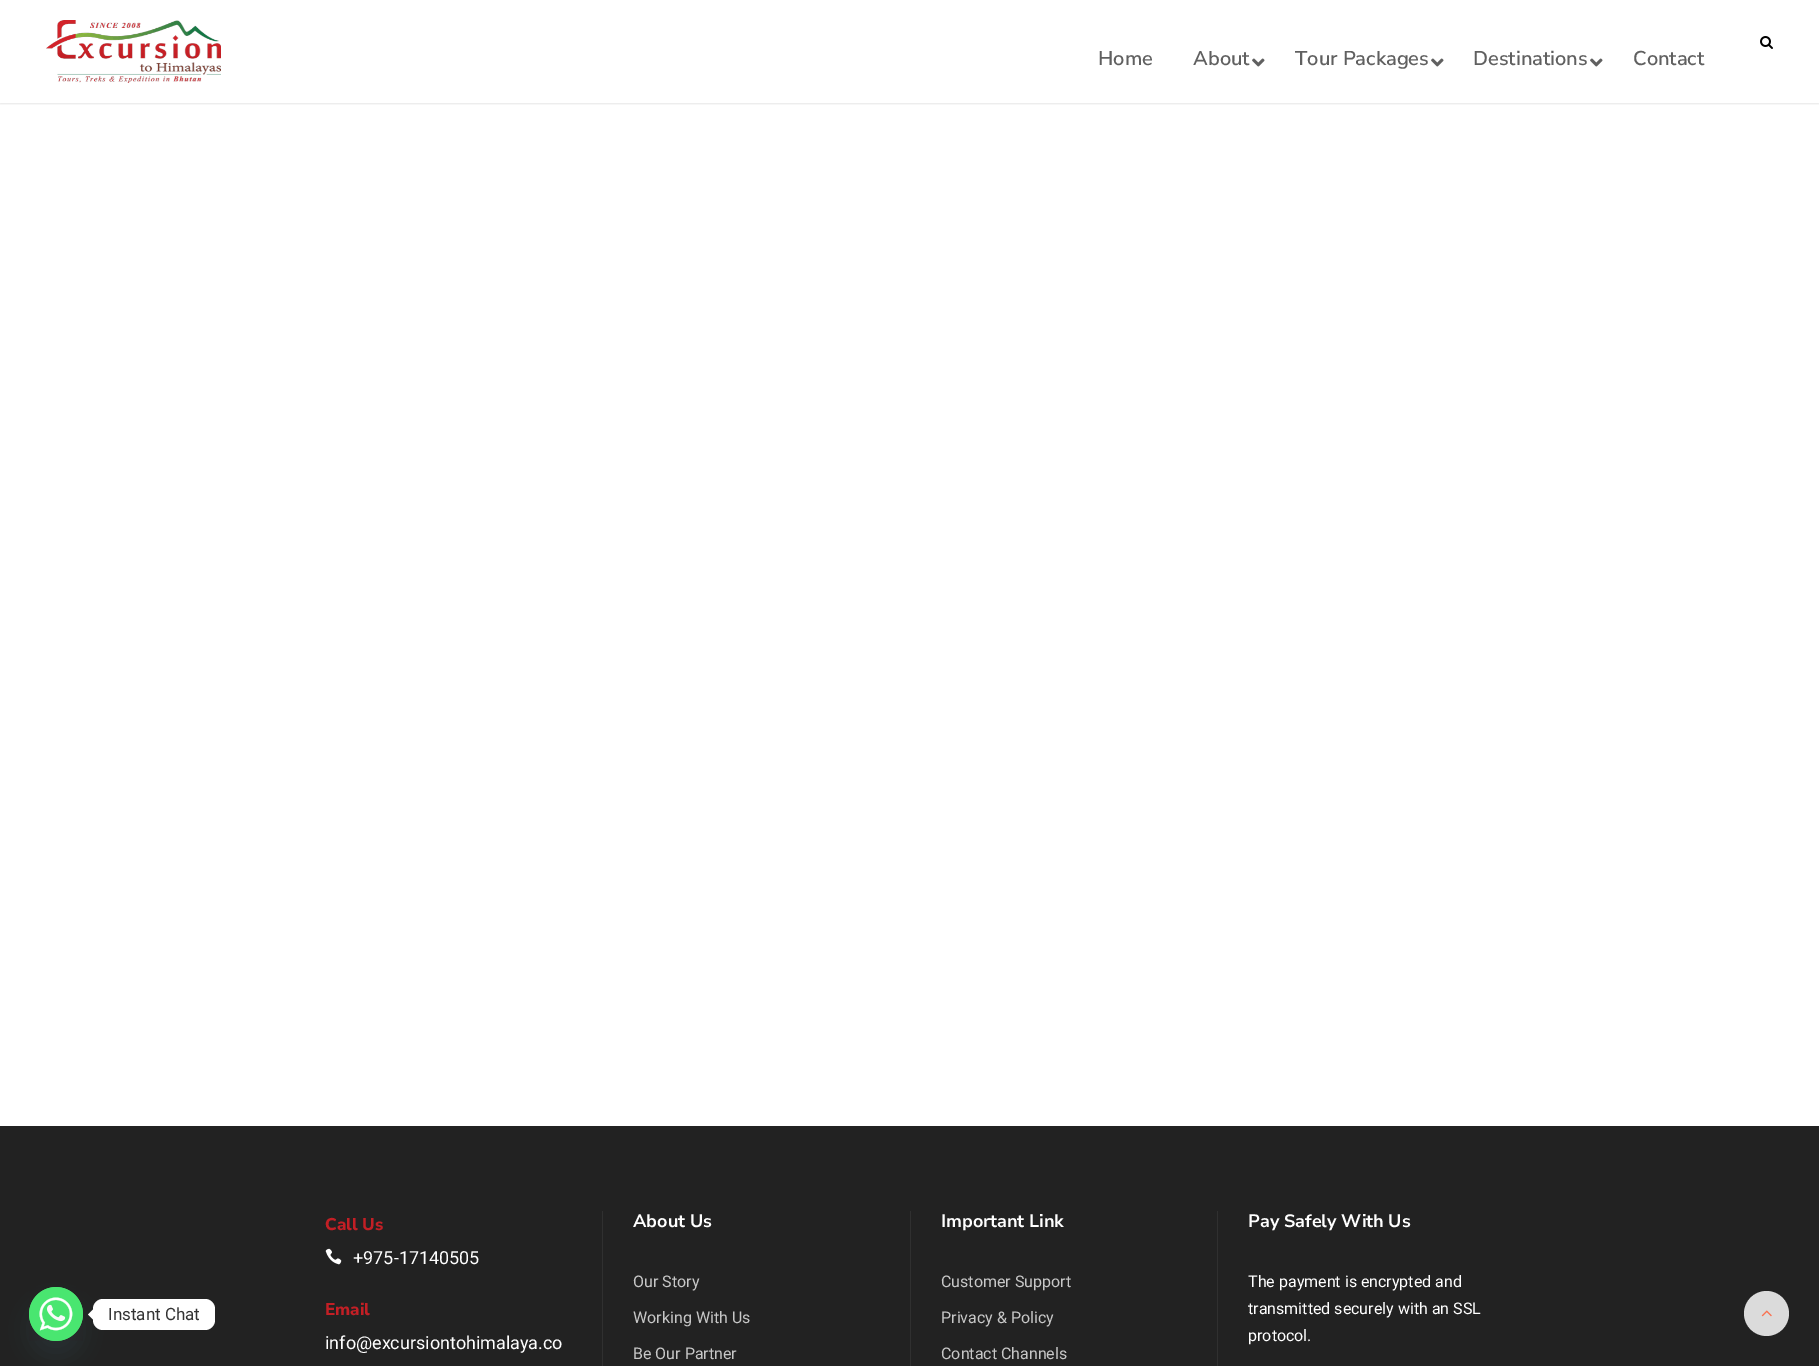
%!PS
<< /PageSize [1819 1366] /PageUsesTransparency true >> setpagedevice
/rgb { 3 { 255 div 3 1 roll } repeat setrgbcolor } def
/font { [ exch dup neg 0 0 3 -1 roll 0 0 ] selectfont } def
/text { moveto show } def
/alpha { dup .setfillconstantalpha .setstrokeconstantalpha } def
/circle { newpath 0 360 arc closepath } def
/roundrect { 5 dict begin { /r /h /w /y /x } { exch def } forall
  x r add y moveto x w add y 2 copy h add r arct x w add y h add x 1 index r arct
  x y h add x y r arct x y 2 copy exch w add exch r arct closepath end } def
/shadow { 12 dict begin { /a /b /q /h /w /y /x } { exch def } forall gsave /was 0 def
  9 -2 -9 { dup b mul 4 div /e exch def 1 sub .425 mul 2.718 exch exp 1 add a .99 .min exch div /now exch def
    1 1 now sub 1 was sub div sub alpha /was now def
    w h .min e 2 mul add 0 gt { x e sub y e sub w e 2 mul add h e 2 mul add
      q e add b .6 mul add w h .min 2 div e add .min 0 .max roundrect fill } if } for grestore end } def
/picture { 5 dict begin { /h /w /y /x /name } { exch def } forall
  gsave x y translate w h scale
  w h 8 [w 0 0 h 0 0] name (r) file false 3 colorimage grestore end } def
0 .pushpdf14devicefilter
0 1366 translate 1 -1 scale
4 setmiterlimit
255 255 255 rgb
0 0 1819 1366 rectfill
gsave
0 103 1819 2 rectclip
0 0 0 rgb
0 1 1819 103 0 1 0.1 shadow
grestore
(img_01.rgb) 46 20 175 63 picture
(img_02.rgb) 1760 36 13 13 picture
(img_03.rgb) 1252 58 13 9 picture
(img_03.rgb) 1431 58 13 9 picture
(img_03.rgb) 1590 58 13 9 picture
34 34 34 rgb
0 1126 1819 240 rectfill
73 104 126 rgb
29 1303 54 54 27 12 0.16 shadow
(img_04.rgb) 29 1287 54 54 picture
255 255 255 rgb
93 1299 122 31 10 roundrect fill
93 1309.5 moveto 0 10 rlineto -5 -5 rlineto closepath fill
(img_05.rgb) 325 1248 17 17 picture
48 48 48 rgb
602 1211 1 155 rectfill
910 1211 1 155 rectfill
1217 1211 1 155 rectfill
219 219 219 rgb
1766.5 1313.5 22.5 circle fill
(img_06.rgb) 1761 1310 11 7 picture
/NunitoSans-SemiBold 20 font
96 96 96 rgb
(Home) 1098 65 text
(About) 1193 65 text
(Tour Packages) 1295 65 text
(Destinations) 1473 65 text
(Contact) 1633 65 text
/Roboto-Regular 17 font
51 51 51 rgb
(Instant Chat) 108 1320 text
/NunitoSans-ExtraBold 17 font
195 31 37 rgb
(Call Us) 325 1230 text
/Roboto-Regular 18 font
255 255 255 rgb
(+975-17140505) 353 1264 text
/NunitoSans-ExtraBold 17 font
195 31 37 rgb
(Email) 325 1315 text
/Roboto-Regular 18 font
255 255 255 rgb
(info@excursiontohimalaya.co) 325 1349 text
/NunitoSans-Bold 18 font
(About Us) 633 1227 text
/Roboto-Regular 16 font
199 199 199 rgb
(Our Story) 633 1287 text
(Working With Us) 633 1323 text
(Be Our Partner) 633 1359 text
/NunitoSans-Bold 18 font
255 255 255 rgb
(Important Link) 941 1227 text
/Roboto-Regular 16 font
199 199 199 rgb
(Customer Support) 941 1287 text
(Privacy & Policy) 941 1323 text
(Contact Channels) 941 1359 text
/NunitoSans-Bold 18 font
255 255 255 rgb
(Pay Safely With Us) 1248 1227 text
/Roboto-Regular 16 font
(The payment is encrypted and) 1248 1287 text
(transmitted securely with an SSL) 1248 1314 text
(protocol.) 1248 1341 text
.poppdf14devicefilter showpage
